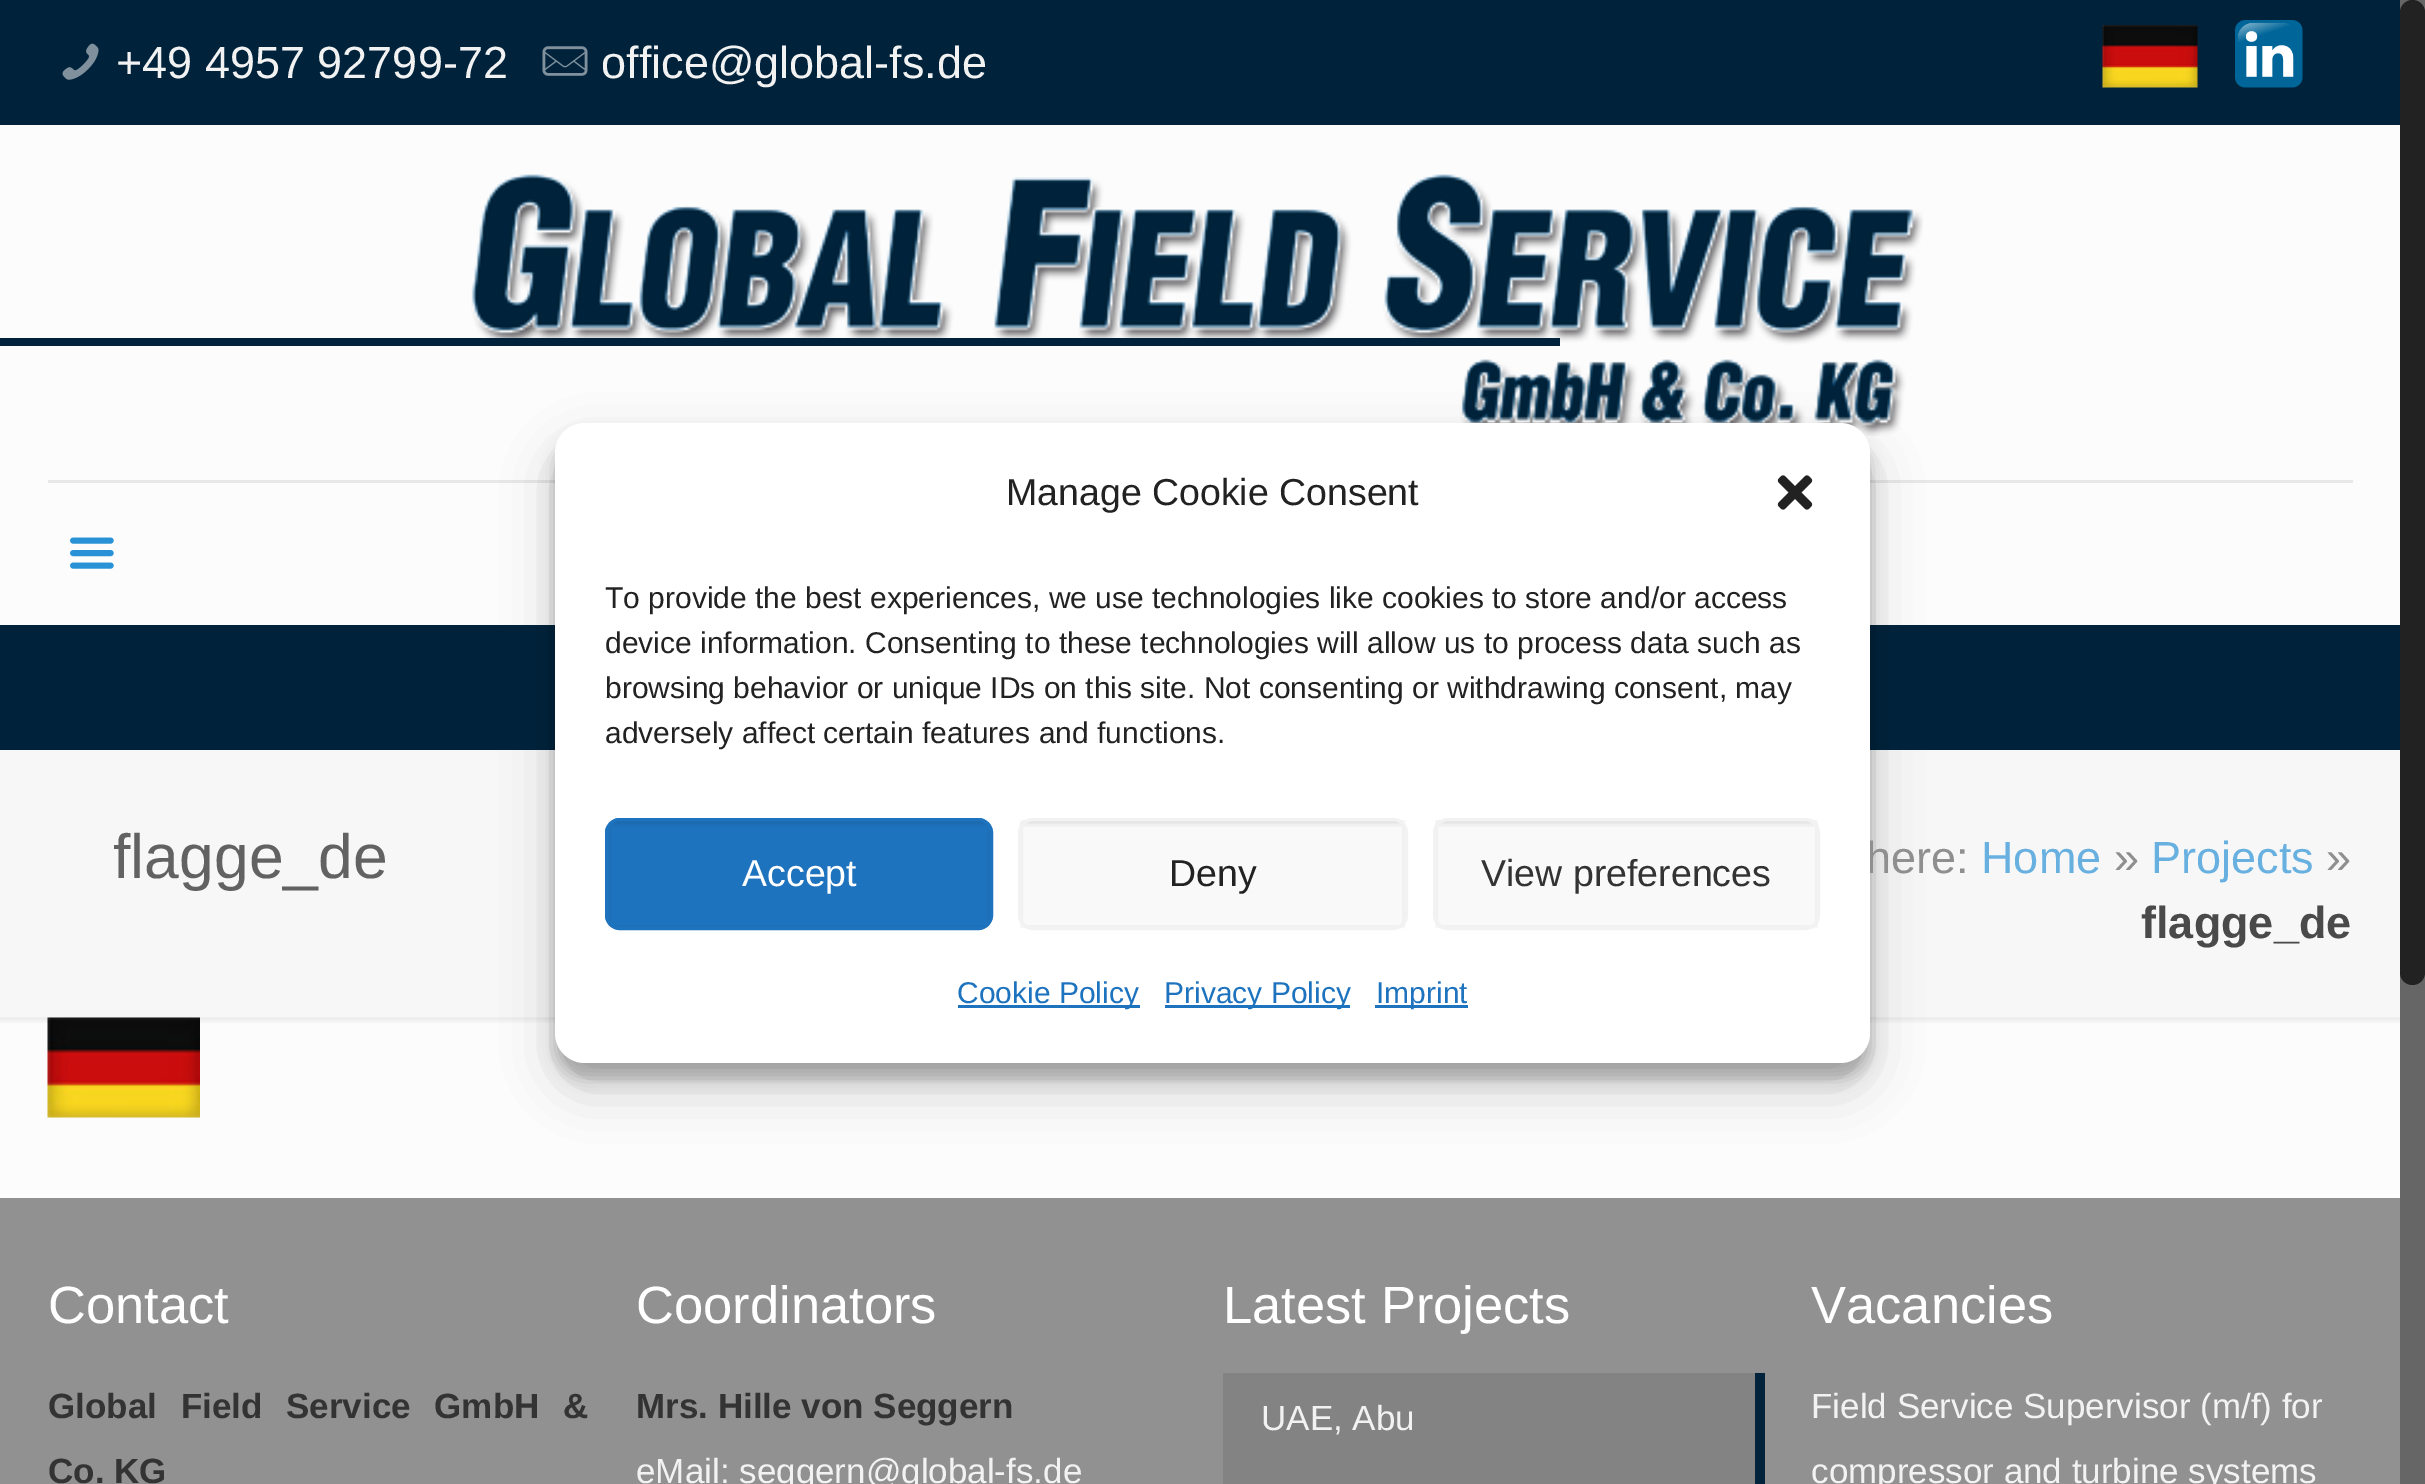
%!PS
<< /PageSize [2425 1484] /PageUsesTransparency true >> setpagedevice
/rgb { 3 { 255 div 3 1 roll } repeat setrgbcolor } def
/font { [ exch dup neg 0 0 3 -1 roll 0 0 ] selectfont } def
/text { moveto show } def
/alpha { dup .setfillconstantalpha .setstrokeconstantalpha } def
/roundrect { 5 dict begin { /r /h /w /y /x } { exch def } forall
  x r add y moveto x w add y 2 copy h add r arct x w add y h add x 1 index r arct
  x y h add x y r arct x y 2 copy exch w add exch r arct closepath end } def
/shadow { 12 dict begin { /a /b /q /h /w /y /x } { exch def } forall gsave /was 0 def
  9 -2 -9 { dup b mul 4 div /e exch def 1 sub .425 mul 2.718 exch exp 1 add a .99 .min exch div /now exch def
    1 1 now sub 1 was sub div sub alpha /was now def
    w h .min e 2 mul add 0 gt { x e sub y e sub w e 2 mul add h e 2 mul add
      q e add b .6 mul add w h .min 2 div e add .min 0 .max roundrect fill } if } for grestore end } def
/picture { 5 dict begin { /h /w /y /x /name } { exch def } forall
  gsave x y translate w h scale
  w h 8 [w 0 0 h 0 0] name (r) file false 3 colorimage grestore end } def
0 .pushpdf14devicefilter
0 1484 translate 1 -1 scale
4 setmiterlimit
252 252 252 rgb
0 0 2425 1484 rectfill
0 35 59 rgb
0 0 2400 750 rectfill
(img_01.rgb) 62 43 37 37 picture
(img_02.rgb) 542 46 46 30 picture
(img_03.rgb) 2102 25 96 63 picture
(img_04.rgb) 2235 20 68 68 picture
252 252 252 rgb
0 125 2400 500 rectfill
232 232 232 rgb
48 480 2305 3 rectfill
(img_05.rgb) 471 174 1452 262 picture
(img_06.rgb) 70 537 44 32 picture
0 35 59 rgb
0 338 1560 8 rectfill
247 247 247 rgb
0 750 2400 268 rectfill
(img_08.rgb) 47 1017 153 101 picture
(img_07.rgb) 0 1017 2400 6 picture
145 145 145 rgb
0 1198 2400 286 rectfill
131 131 131 rgb
1223 1373 532 111 rectfill
0 35 59 rgb
1755 1373 10 111 rectfill
102 102 102 rgb
2400 0 25 1484 rectfill
34 34 34 rgb
2400 0 25 985 12.5 roundrect fill
0 0 0 rgb
555 438 1315 640 30 7.5 0.23 shadow
555 448 1315 640 30 25 0.19 shadow
/LiberationSans-Regular 45 font
242 242 242 rgb
(+49 4957 92799-72) 116 78 text
(office@global-fs.de) 601 78 text
/LiberationSans-Regular 62.5 font
98 98 98 rgb
(flagge_de) 113 878 text
/LiberationSans-Regular 45 font
143 143 143 rgb
(here:) 1866 873 text
103 176 224 rgb
(Home) 1981 873 text
143 143 143 rgb
(») 2114 873 text
103 176 224 rgb
(Projects) 2151 873 text
143 143 143 rgb
(») 2326 873 text
/LiberationSans-Bold 45 font
74 74 74 rgb
(flagge_de) 2141 938 text
/LiberationSans-Regular 52.5 font
255 255 255 rgb
(Contact) 48 1323 text
/LiberationSans-Bold 35 font
51 51 51 rgb
48 1418 moveto 14 0 32 (Global Field Service GmbH &) widthshow
(Co. KG) 48 1483 text
/LiberationSans-Regular 52.5 font
255 255 255 rgb
(Coordinators) 636 1323 text
/LiberationSans-Bold 35 font
51 51 51 rgb
(Mrs. Hille von Seggern) 636 1418 text
/LiberationSans-Regular 35 font
242 242 242 rgb
(eMail: seggern@global-fs.de) 636 1483 text
/LiberationSans-Regular 52.5 font
255 255 255 rgb
(Latest Projects) 1223 1323 text
/LiberationSans-Regular 35 font
242 242 242 rgb
(UAE, Abu) 1261 1430 text
/LiberationSans-Regular 52.5 font
255 255 255 rgb
(Vacancies) 1811 1323 text
/LiberationSans-Regular 35 font
242 242 242 rgb
(Field Service Supervisor \(m/f\) for) 1811 1418 text
(compressor and turbine systems) 1811 1483 text
255 255 255 rgb
555 423 1315 640 30 roundrect fill
/LiberationSans-Regular 37.5 font
34 34 34 rgb
(Manage Cookie Consent) 1006 505 text
(img_09.rgb) 1777 475 36 35 picture
/LiberationSans-Regular 30 font
(To provide the best experiences, we use technologies like cookies to store and/or access) 605 608 text
(device information. Consenting to these technologies will allow us to process data such as) 605 653 text
(browsing behavior or unique IDs on this site. Not consenting or withdrawing consent, may) 605 698 text
(adversely affect certain features and functions.) 605 743 text
30 115 190 rgb
605 818 388 112 15 roundrect fill
(img_10.rgb) 607 820 382 7 picture
0.03 alpha
0 0 0 rgb
3 setlinewidth
609.5 821.5 379 105 rectstroke
1 alpha
30 115 190 rgb
606.5 819.5 385 109 13.5 roundrect stroke
/LiberationSans-Regular 37.5 font
255 255 255 rgb
(Accept) 742 886 text
249 249 249 rgb
1018 818 390 112 15 roundrect fill
(img_11.rgb) 1019 820 385 7 picture
0.03 alpha
0 0 0 rgb
1021.5 821.5 382 105 rectstroke
1 alpha
242 242 242 rgb
1019.5 819.5 387 109 13.5 roundrect stroke
34 34 34 rgb
(Deny) 1169 886 text
249 249 249 rgb
1433 818 387 112 15 roundrect fill
(img_12.rgb) 1434 820 384 7 picture
0.03 alpha
0 0 0 rgb
1436.5 821.5 380 105 rectstroke
1 alpha
242 242 242 rgb
1434.5 819.5 384 109 13.5 roundrect stroke
51 51 51 rgb
(View preferences) 1481 886 text
30 115 190 rgb
958 1005 182 3 rectfill
/LiberationSans-Regular 30 font
(Cookie Policy) 957 1003 text
1165 1005 185 3 rectfill
(Privacy Policy) 1164 1003 text
1375 1005 93 3 rectfill
(Imprint) 1376 1003 text
.poppdf14devicefilter showpage
